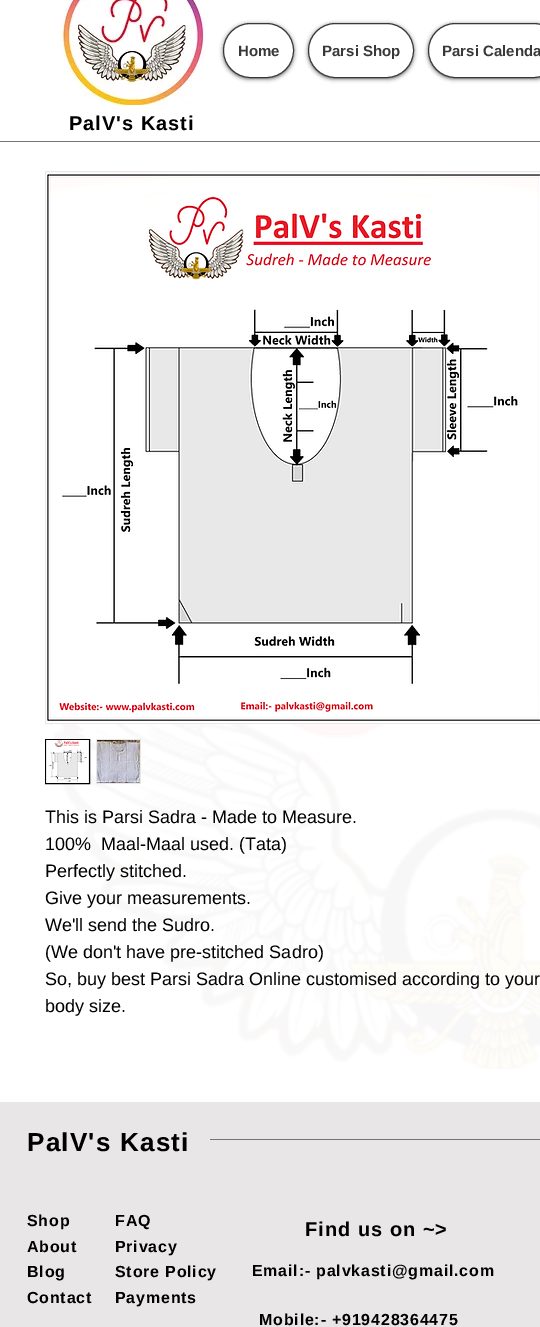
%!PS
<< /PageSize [540 1327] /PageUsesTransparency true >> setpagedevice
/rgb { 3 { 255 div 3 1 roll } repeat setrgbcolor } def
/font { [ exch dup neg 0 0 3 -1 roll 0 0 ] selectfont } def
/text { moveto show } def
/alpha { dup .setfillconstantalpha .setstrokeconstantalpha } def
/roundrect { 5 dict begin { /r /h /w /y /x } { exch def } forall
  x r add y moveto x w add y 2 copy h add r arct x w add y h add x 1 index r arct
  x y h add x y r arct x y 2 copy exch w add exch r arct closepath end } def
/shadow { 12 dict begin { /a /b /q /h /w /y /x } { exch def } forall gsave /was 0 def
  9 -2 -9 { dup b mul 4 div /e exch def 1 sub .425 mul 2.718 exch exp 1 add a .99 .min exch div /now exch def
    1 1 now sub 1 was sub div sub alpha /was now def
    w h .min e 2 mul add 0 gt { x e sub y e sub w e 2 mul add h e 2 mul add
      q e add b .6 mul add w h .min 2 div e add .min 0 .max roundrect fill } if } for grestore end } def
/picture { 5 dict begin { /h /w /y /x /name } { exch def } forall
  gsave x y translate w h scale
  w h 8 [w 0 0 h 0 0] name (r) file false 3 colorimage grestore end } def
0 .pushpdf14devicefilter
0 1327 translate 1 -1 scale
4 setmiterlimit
255 255 255 rgb
0 0 540 1327 rectfill
(img_01.rgb) 60 0 146 105 picture
0 0 0 rgb
223 24 71 55 27.5 2 0.6 shadow
255 255 255 rgb
223.5 23.5 70 54 27 roundrect gsave fill grestore
56 56 56 rgb
stroke
0 0 0 rgb
308 24 106 55 27.5 2 0.6 shadow
255 255 255 rgb
308.5 23.5 105 54 27 roundrect gsave fill grestore
56 56 56 rgb
stroke
0 0 0 rgb
428 24 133 55 27.5 2 0.6 shadow
255 255 255 rgb
428.5 23.5 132 54 27 roundrect gsave fill grestore
56 56 56 rgb
stroke
117 117 117 rgb
0 141 540 1 rectfill
232 230 230 rgb
45.5 171.5 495 552 rectstroke
(img_02.rgb) 46 172 494 551 picture
(img_05.rgb) 53 724 487 345 picture
0 0 0 rgb
45.5 739.5 44 44 rectstroke
(img_03.rgb) 46 740 43 43 picture
232 230 230 rgb
96 739 45 45 rectfill
(img_04.rgb) 97 740 43 43 picture
0 1102 540 225 rectfill
117 117 117 rgb
210 1139 330 1 rectfill
/LiberationSans-Bold 15 font
56 56 56 rgb
(Home) 238 56 text
(Parsi Shop) 322 56 text
(Parsi Calenda) 442 56 text
/LiberationSans-Bold 20 font
0 0 0 rgb
69 130 moveto 1 0 (PalV's Kasti) ashow
/LiberationSans-Regular 18 font
(This is Parsi Sadra - Made to Measure.) 45 823 text
(100%  Maal-Maal used. \(Tata\)) 45 850 text
(Perfectly stitched.) 45 877 text
(Give your measurements.) 45 904 text
(We'll send the Sudro.) 45 931 text
(\(We don't have pre-stitched Sadro\)) 45 958 text
(So, buy best Parsi Sadra Online customised according to your) 45 985 text
(body size.) 45 1012 text
/LiberationSans-Bold 26 font
27 1151 moveto 1.25 0 (PalV's Kasti) ashow
/LiberationSans-Bold 16 font
27 1226 moveto 0.8 0 (Shop) ashow
27 1252 moveto 0.8 0 (About) ashow
27 1277 moveto 0.8 0 (Blog) ashow
27 1303 moveto 0.8 0 (Contact) ashow
115 1226 moveto 0.8 0 (FAQ) ashow
115 1252 moveto 0.8 0 (Privacy) ashow
115 1277 moveto 0.8 0 (Store Policy) ashow
115 1303 moveto 0.8 0 (Payments) ashow
/LiberationSans-Bold 20 font
305 1236 moveto 1 0 (Find us on ~>) ashow
/LiberationSans-Bold 16 font
252 1276 moveto 0.8 0 (Email:- palvkasti@gmail.com) ashow
259 1325 moveto 0.8 0 (Mobile:- +919428364475) ashow
.poppdf14devicefilter showpage
